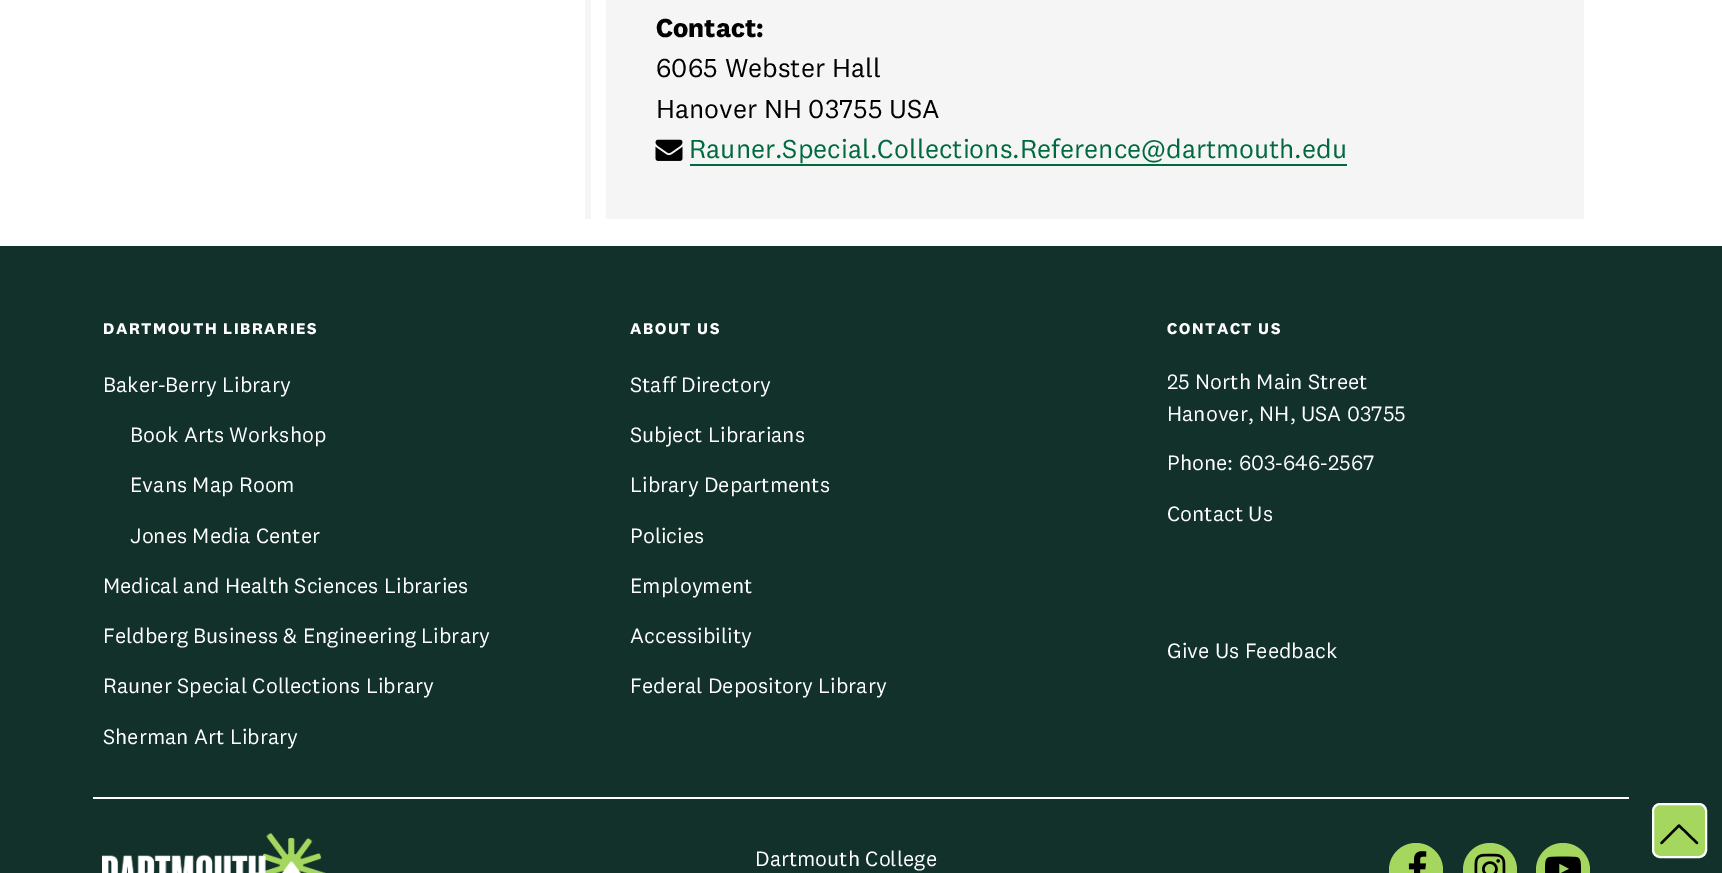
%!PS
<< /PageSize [1722 873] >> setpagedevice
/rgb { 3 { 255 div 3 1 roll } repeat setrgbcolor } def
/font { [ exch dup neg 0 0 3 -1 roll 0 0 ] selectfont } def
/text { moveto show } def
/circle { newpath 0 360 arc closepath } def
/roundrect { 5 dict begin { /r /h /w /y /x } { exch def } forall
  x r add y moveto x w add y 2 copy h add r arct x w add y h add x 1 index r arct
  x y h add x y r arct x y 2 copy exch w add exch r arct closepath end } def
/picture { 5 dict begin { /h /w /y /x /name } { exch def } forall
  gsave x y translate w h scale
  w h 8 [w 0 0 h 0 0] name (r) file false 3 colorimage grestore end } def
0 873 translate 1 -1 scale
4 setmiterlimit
255 255 255 rgb
0 0 1722 873 rectfill
245 245 245 rgb
585 0 6 219 rectfill
606 0 978 219 rectfill
(img_01.rgb) 655 139 28 22 picture
0 105 62 rgb
690 164 657 2 rectfill
18 49 43 rgb
0 246 1722 627 rectfill
255 255 255 rgb
93 797 1536 2 rectfill
(img_02.rgb) 102 833 224 40 picture
165 215 95 rgb
1416 870 27 circle fill
(img_03.rgb) 1408 851 19 22 picture
1490 870 27 circle fill
(img_04.rgb) 1474 853 32 20 picture
1563 870 27 circle fill
(img_05.rgb) 1545 856 36 17 picture
1653 804 53 53 7 roundrect gsave fill grestore
255 255 255 rgb
2 setlinewidth
stroke
0 0 0 rgb
2.3 setlinewidth
1 setlinecap
1 setlinejoin
1697 843 moveto -18 -17.5 rlineto -17.5 17.5 rlineto stroke
/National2-Bold 27 font
(Contact:) 656 37 text
/National2-Regular 27 font
(6065 Webster Hall) 656 77 text
(Hanover NH 03755 USA) 656 118 text
0 105 62 rgb
(Rauner.Special.Collections.Reference@dartmouth.edu) 689 158 text
/National2-Bold 16.25 font
255 255 255 rgb
103 334 moveto 1.5 0 (DARTMOUTH LIBRARIES) ashow
/National2-Regular 21.6 font
(Baker-Berry Library) 103 392 text
(Book Arts Workshop) 130 442 text
(Evans Map Room) 130 492 text
(Jones Media Center) 130 543 text
(Medical and Health Sciences Libraries) 103 593 text
(Feldberg Business & Engineering Library) 103 643 text
(Rauner Special Collections Library) 103 693 text
(Sherman Art Library) 103 744 text
/National2-Bold 16.25 font
630 334 moveto 1.5 0 (ABOUT US) ashow
/National2-Regular 21.6 font
(Staff Directory) 630 392 text
(Subject Librarians) 630 442 text
(Library Departments) 630 492 text
(Policies) 630 543 text
(Employment) 630 593 text
(Accessibility) 630 643 text
(Federal Depository Library) 630 693 text
/National2-Bold 16.25 font
1167 334 moveto 1.5 0 (CONTACT US) ashow
/National2-Regular 21.6 font
(25 North Main Street) 1167 389 text
(Hanover, NH, USA 03755) 1167 421 text
(Phone: 603-646-2567) 1167 470 text
(Contact Us) 1167 521 text
(Give Us Feedback) 1167 658 text
(Dartmouth College) 755 866 text
showpage
